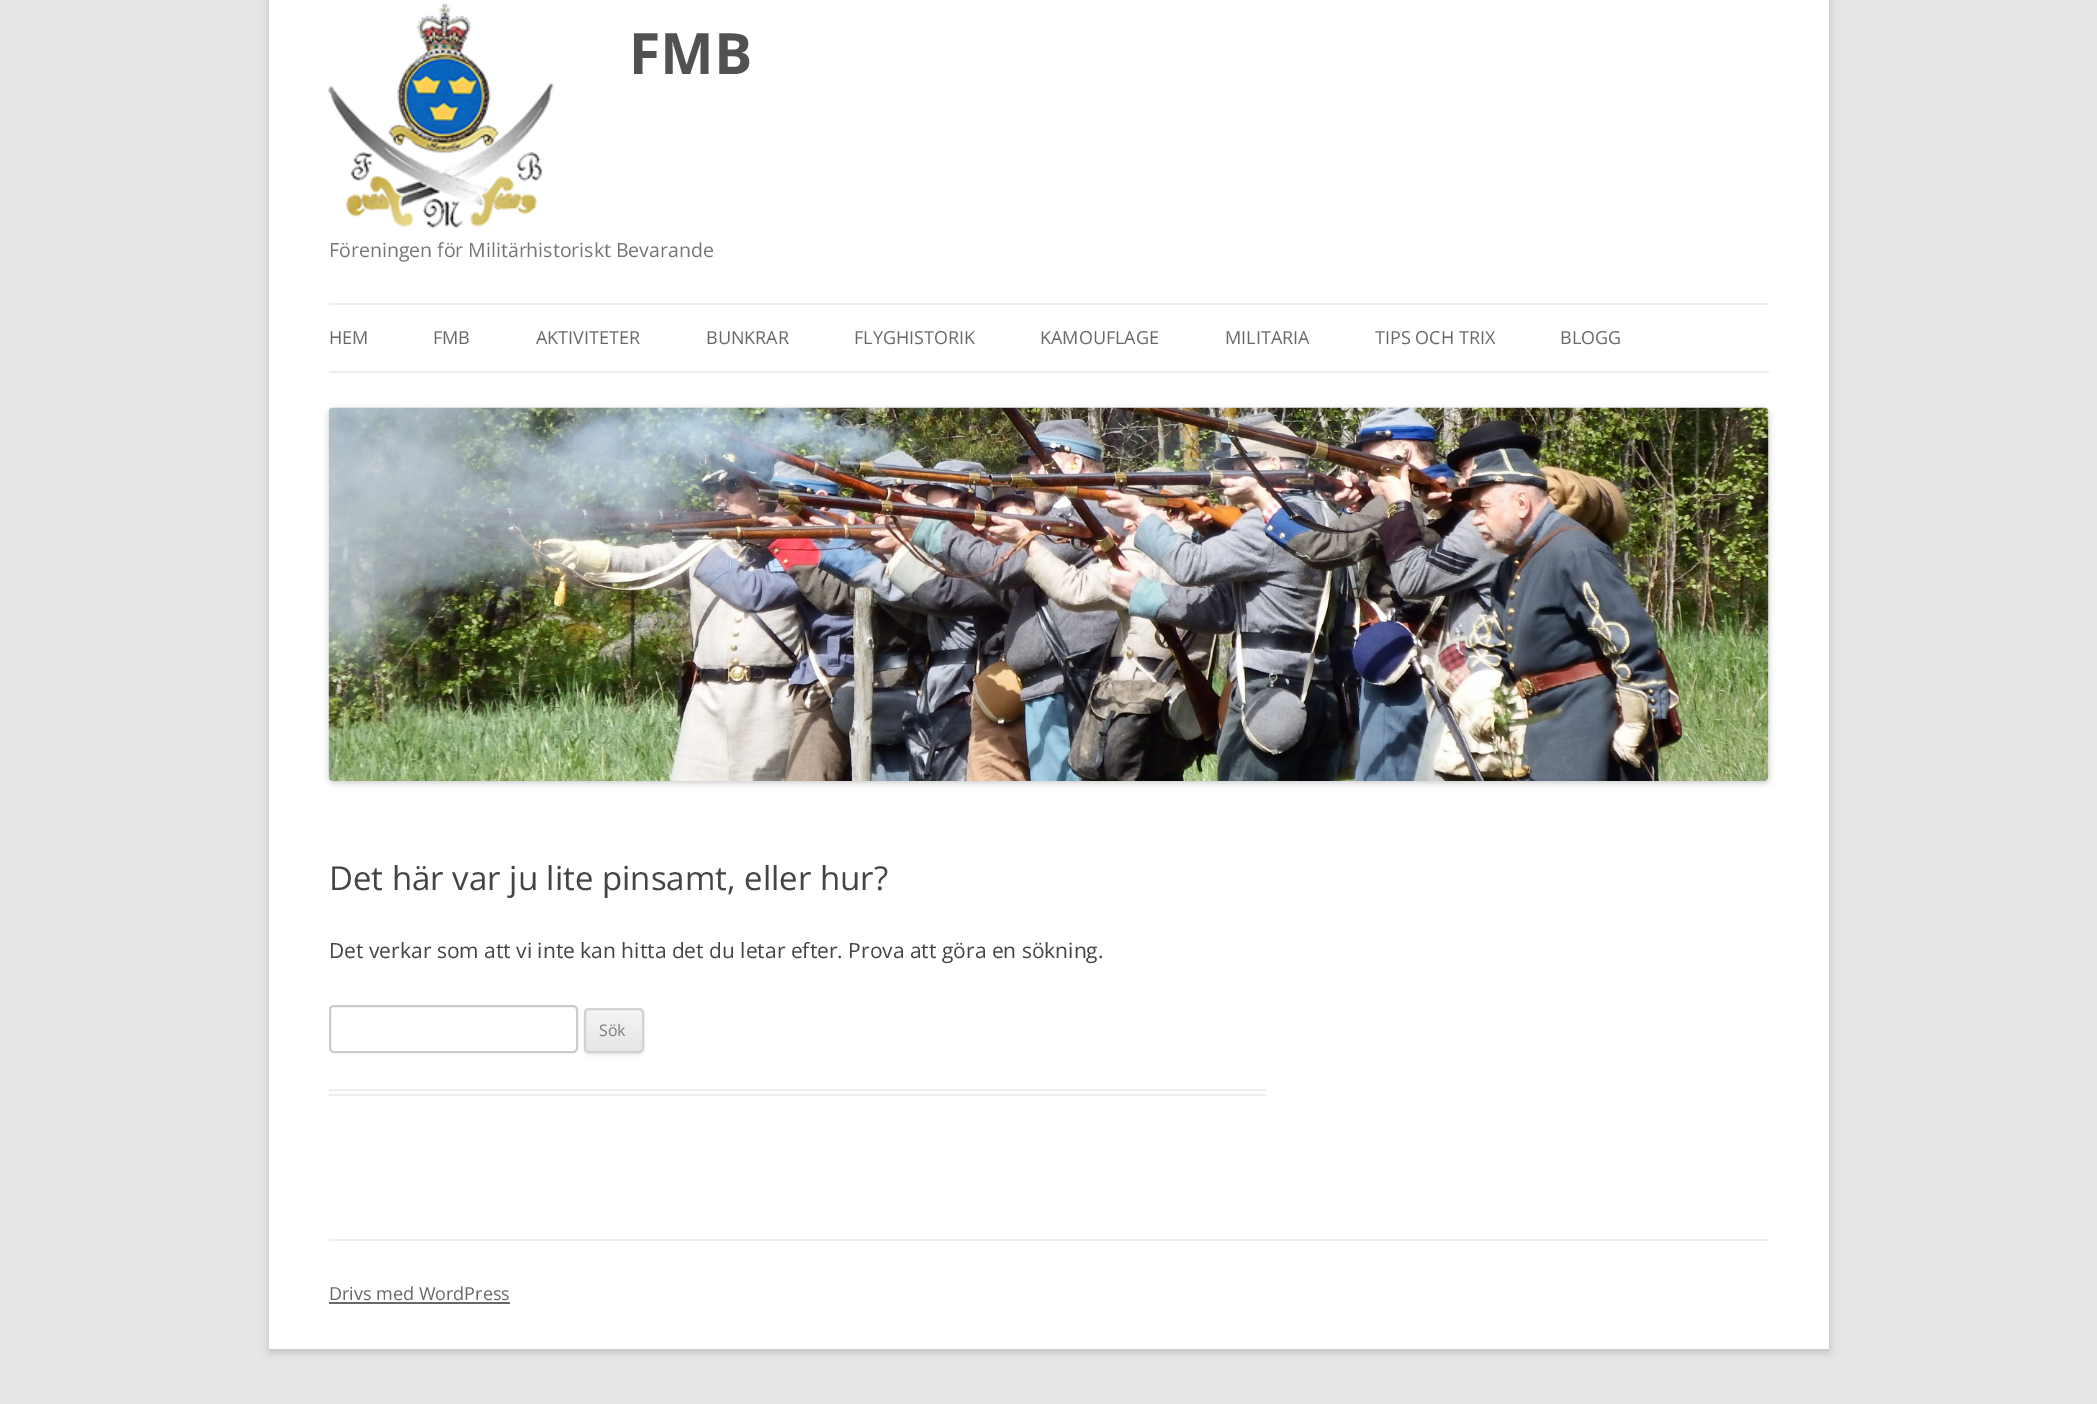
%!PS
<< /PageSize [2097 1404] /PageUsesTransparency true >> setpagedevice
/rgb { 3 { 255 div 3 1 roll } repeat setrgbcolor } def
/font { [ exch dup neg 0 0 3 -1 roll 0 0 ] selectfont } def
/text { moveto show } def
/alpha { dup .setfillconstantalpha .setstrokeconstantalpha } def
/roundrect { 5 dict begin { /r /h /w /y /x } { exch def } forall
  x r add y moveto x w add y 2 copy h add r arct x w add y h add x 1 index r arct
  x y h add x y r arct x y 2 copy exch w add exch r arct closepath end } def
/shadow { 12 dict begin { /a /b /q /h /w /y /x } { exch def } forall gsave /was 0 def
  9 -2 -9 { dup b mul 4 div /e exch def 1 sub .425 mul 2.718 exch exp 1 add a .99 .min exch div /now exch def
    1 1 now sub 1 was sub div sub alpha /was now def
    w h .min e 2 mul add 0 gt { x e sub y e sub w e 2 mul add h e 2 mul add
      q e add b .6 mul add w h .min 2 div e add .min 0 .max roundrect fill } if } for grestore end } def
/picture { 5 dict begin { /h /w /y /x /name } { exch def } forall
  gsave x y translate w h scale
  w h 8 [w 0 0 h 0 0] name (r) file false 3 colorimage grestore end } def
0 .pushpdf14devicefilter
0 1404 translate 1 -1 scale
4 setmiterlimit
230 230 230 rgb
0 0 2097 1404 rectfill
100 100 100 rgb
269 -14 1560 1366 0 4.5 0.3 shadow
255 255 255 rgb
269 0 1560 1349 rectfill
(img_01.rgb) 328 3 226 225 picture
237 237 237 rgb
329 303 1440 2 rectfill
329 371 1440 2 rectfill
0 0 0 rgb
329 410 1440 373 5 3 0.2 shadow
(img_02.rgb) 328 407 1441 374 picture
237 237 237 rgb
329 1089 937 2 rectfill
329 1094 937 2 rectfill
204 204 204 rgb
2 setlinewidth
330 1006 247 46 4 roundrect stroke
64 64 64 rgb
584 1010 60 45 5 1.5 0.1 shadow
gsave
584 1008 60 45 5 roundrect clip newpath
gsave 584 1010 moveto 60 0 rlineto 0 42 rlineto -60 0 rlineto closepath clip newpath
<< /ShadingType 2 /ColorSpace /DeviceRGB /Coords [614 1010 614 1052] /Extend [true true] /Function << /FunctionType 2 /Domain [0 1] /C0 [0.957 0.957 0.957] /C1 [0.902 0.902 0.902] /N 1 >> >> shfill grestore
grestore
210 210 210 rgb
585 1009 58 43 4 roundrect stroke
237 237 237 rgb
329 1239 1440 2 rectfill
104 104 104 rgb
329 1302 181 2 rectfill
/OpenSans-Bold 57 font
81 81 81 rgb
(FMB) 629 74 text
/OpenSans-Regular 19.5 font
117 117 117 rgb
(Föreningen för Militärhistoriskt Bevarande) 329 257 text
/OpenSans-Regular 18 font
104 104 104 rgb
(HEM) 329 344 text
(FMB) 433 344 text
(AKTIVITETER) 536 344 text
(BUNKRAR) 706 344 text
(FLYGHISTORIK) 854 344 text
(KAMOUFLAGE) 1040 344 text
(MILITARIA) 1225 344 text
(TIPS OCH TRIX) 1375 344 text
(BLOGG) 1560 344 text
/OpenSans-Regular 33 font
68 68 68 rgb
(Det här var ju lite pinsamt, eller hur?) 329 890 text
/OpenSans-Regular 21 font
(Det verkar som att vi inte kan hitta det du letar efter. Prova att göra en sökning.) 329 958 text
/OpenSans-Regular 16 font
124 124 124 rgb
(Sök) 599 1036 text
/OpenSans-Regular 18 font
104 104 104 rgb
(Drivs med WordPress) 329 1300 text
.poppdf14devicefilter showpage
